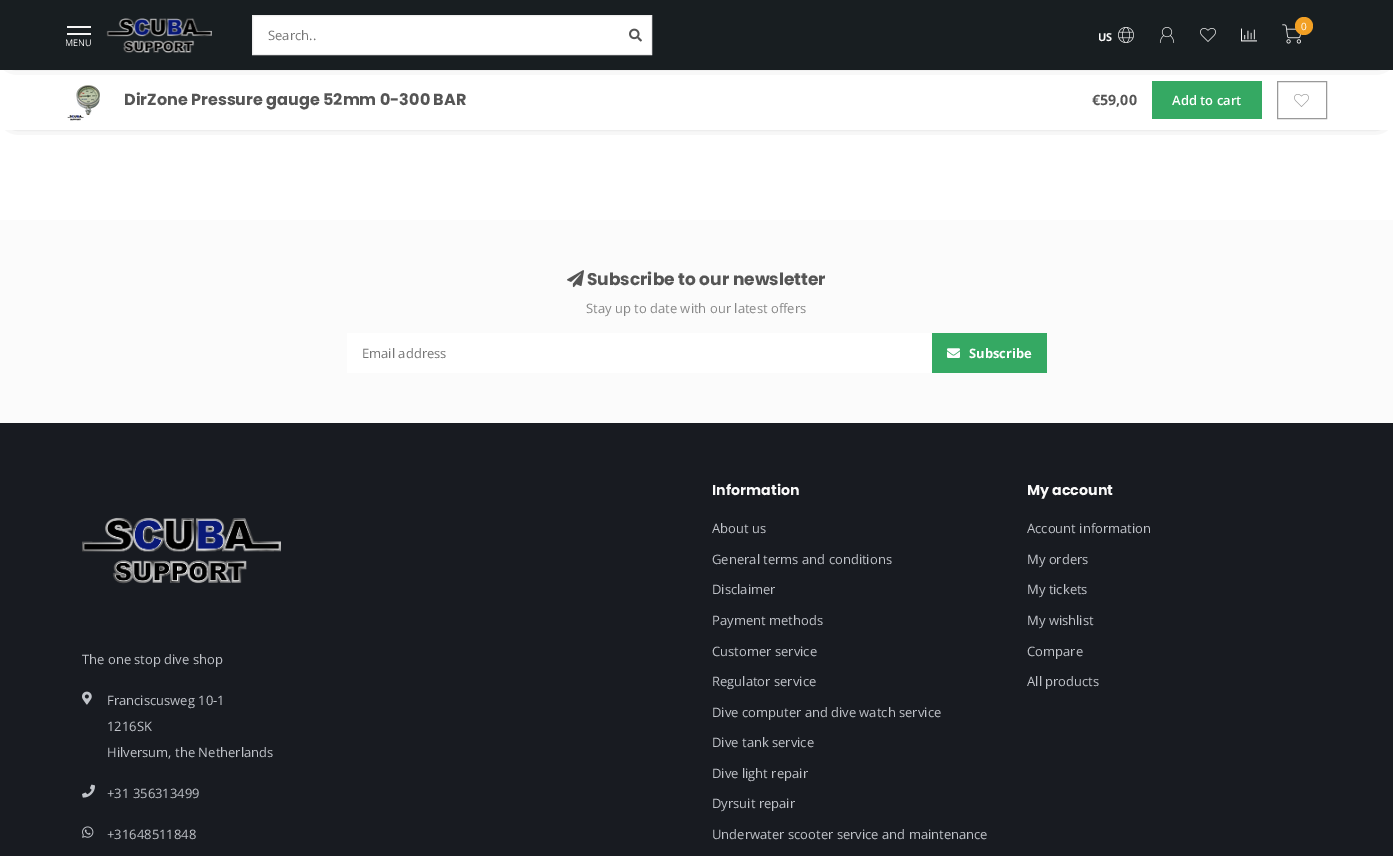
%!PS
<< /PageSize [1393 856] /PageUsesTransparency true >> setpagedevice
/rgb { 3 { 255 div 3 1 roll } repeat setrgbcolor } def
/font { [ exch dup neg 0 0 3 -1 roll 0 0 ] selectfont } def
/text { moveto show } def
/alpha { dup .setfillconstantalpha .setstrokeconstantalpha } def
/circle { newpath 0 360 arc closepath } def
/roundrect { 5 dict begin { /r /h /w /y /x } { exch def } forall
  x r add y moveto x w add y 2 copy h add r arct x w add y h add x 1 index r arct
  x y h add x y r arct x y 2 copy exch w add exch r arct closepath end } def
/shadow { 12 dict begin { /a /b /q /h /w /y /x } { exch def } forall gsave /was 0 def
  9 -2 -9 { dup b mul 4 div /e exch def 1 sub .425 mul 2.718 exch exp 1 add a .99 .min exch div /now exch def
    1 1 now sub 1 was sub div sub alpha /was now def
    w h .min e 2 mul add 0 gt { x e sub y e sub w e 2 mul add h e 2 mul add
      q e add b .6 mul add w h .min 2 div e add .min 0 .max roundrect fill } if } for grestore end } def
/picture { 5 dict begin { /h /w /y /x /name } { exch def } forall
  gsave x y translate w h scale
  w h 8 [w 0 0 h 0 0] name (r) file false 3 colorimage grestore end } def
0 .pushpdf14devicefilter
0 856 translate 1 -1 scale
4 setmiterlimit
255 255 255 rgb
0 0 1393 856 rectfill
0 0 0 rgb
14 86 1365 32 0 7.5 1 shadow
255 255 255 rgb
0 70 1393 60 rectfill
53 169 99 rgb
1152 81 110 38 rectfill
153 153 153 rgb
1277.5 81.5 49 37 rectstroke
0 0 0 rgb
13 13 1367 44 0 8 0.8 shadow
24 30 33 rgb
0 0 1393 70 rectfill
255 255 255 rgb
252.5 15.5 moveto 399 0 rlineto 0 39 rlineto -399 0 rlineto closepath gsave fill grestore
238 238 238 rgb
stroke
(img_01.rgb) 629 28 13 14 picture
(img_02.rgb) 1282 24 19 20 picture
242 160 36 rgb
1304 26 9 circle fill
(img_03.rgb) 1118 27 16 16 picture
(img_04.rgb) 1159 27 16 16 picture
(img_05.rgb) 1200 28 16 14 picture
(img_06.rgb) 1241 28 16 14 picture
245 245 245 rgb
67 26 24 2 rectfill
67 33 24 2 rectfill
(img_07.rgb) 106 18 106 35 picture
(img_08.rgb) 67 85 33 36 picture
(img_09.rgb) 1294 94 15 13 picture
251 251 251 rgb
0 220 1393 203 rectfill
(img_10.rgb) 567 270 17 18 picture
255 255 255 rgb
347 333 585 40 rectfill
53 169 99 rgb
932 333 115 40 rectfill
(img_11.rgb) 947 348 13 10 picture
24 27 33 rgb
0 423 1393 433 rectfill
(img_12.rgb) 82 517 199 67 picture
(img_13.rgb) 82 691 10 14 picture
(img_14.rgb) 82 784 13 14 picture
(img_15.rgb) 82 826 12 12 picture
/OpenSans-Regular 13 font
117 117 117 rgb
(Search..) 268 40 text
/OpenSans-Regular 10 font
255 255 255 rgb
(0) 1301 30 text
/OpenSans-Bold 11 font
249 249 249 rgb
(US) 1098 41 text
/OpenSans-Regular 9 font
(MENU) 65 46 text
/Poppins-Bold 16 font
85 85 85 rgb
(DirZone Pressure gauge 52mm 0-300 BAR) 124 105 text
/OpenSans-Bold 14.25 font
(€59,00) 1092 105 text
/OpenSans-SemiBold 13 font
255 255 255 rgb
(Add to cart) 1172 105 text
/Poppins-Bold 17 font
85 85 85 rgb
(Subscribe to our newsletter) 587 285 text
/OpenSans-Regular 13 font
135 135 135 rgb
(Stay up to date with our latest offers) 586 313 text
117 117 117 rgb
(Email address) 362 358 text
/OpenSans-Bold 13 font
255 255 255 rgb
(Subscribe) 969 358 text
/Poppins-Bold 14.25 font
249 249 249 rgb
(Information) 712 495 text
/OpenSans-Regular 13 font
193 196 202 rgb
(About us) 712 533 text
(General terms and conditions) 712 564 text
(Disclaimer) 712 594 text
(Payment methods) 712 625 text
(Customer service) 712 656 text
(Regulator service) 712 686 text
(Dive computer and dive watch service) 712 717 text
(Dive tank service) 712 747 text
(Dive light repair) 712 778 text
(Dyrsuit repair) 712 808 text
(Underwater scooter service and maintenance) 712 839 text
/Poppins-Bold 14.25 font
249 249 249 rgb
(My account) 1027 495 text
/OpenSans-Regular 13 font
193 196 202 rgb
(Account information) 1027 533 text
(My orders) 1027 564 text
(My tickets) 1027 594 text
(My wishlist) 1027 625 text
(Compare) 1027 656 text
(All products) 1027 686 text
(The one stop dive shop) 82 664 text
(Franciscusweg 10-1) 107 705 text
(1216SK) 107 731 text
(Hilversum, the Netherlands) 107 757 text
(+31 356313499) 107 798 text
(+31648511848) 107 839 text
.poppdf14devicefilter showpage
